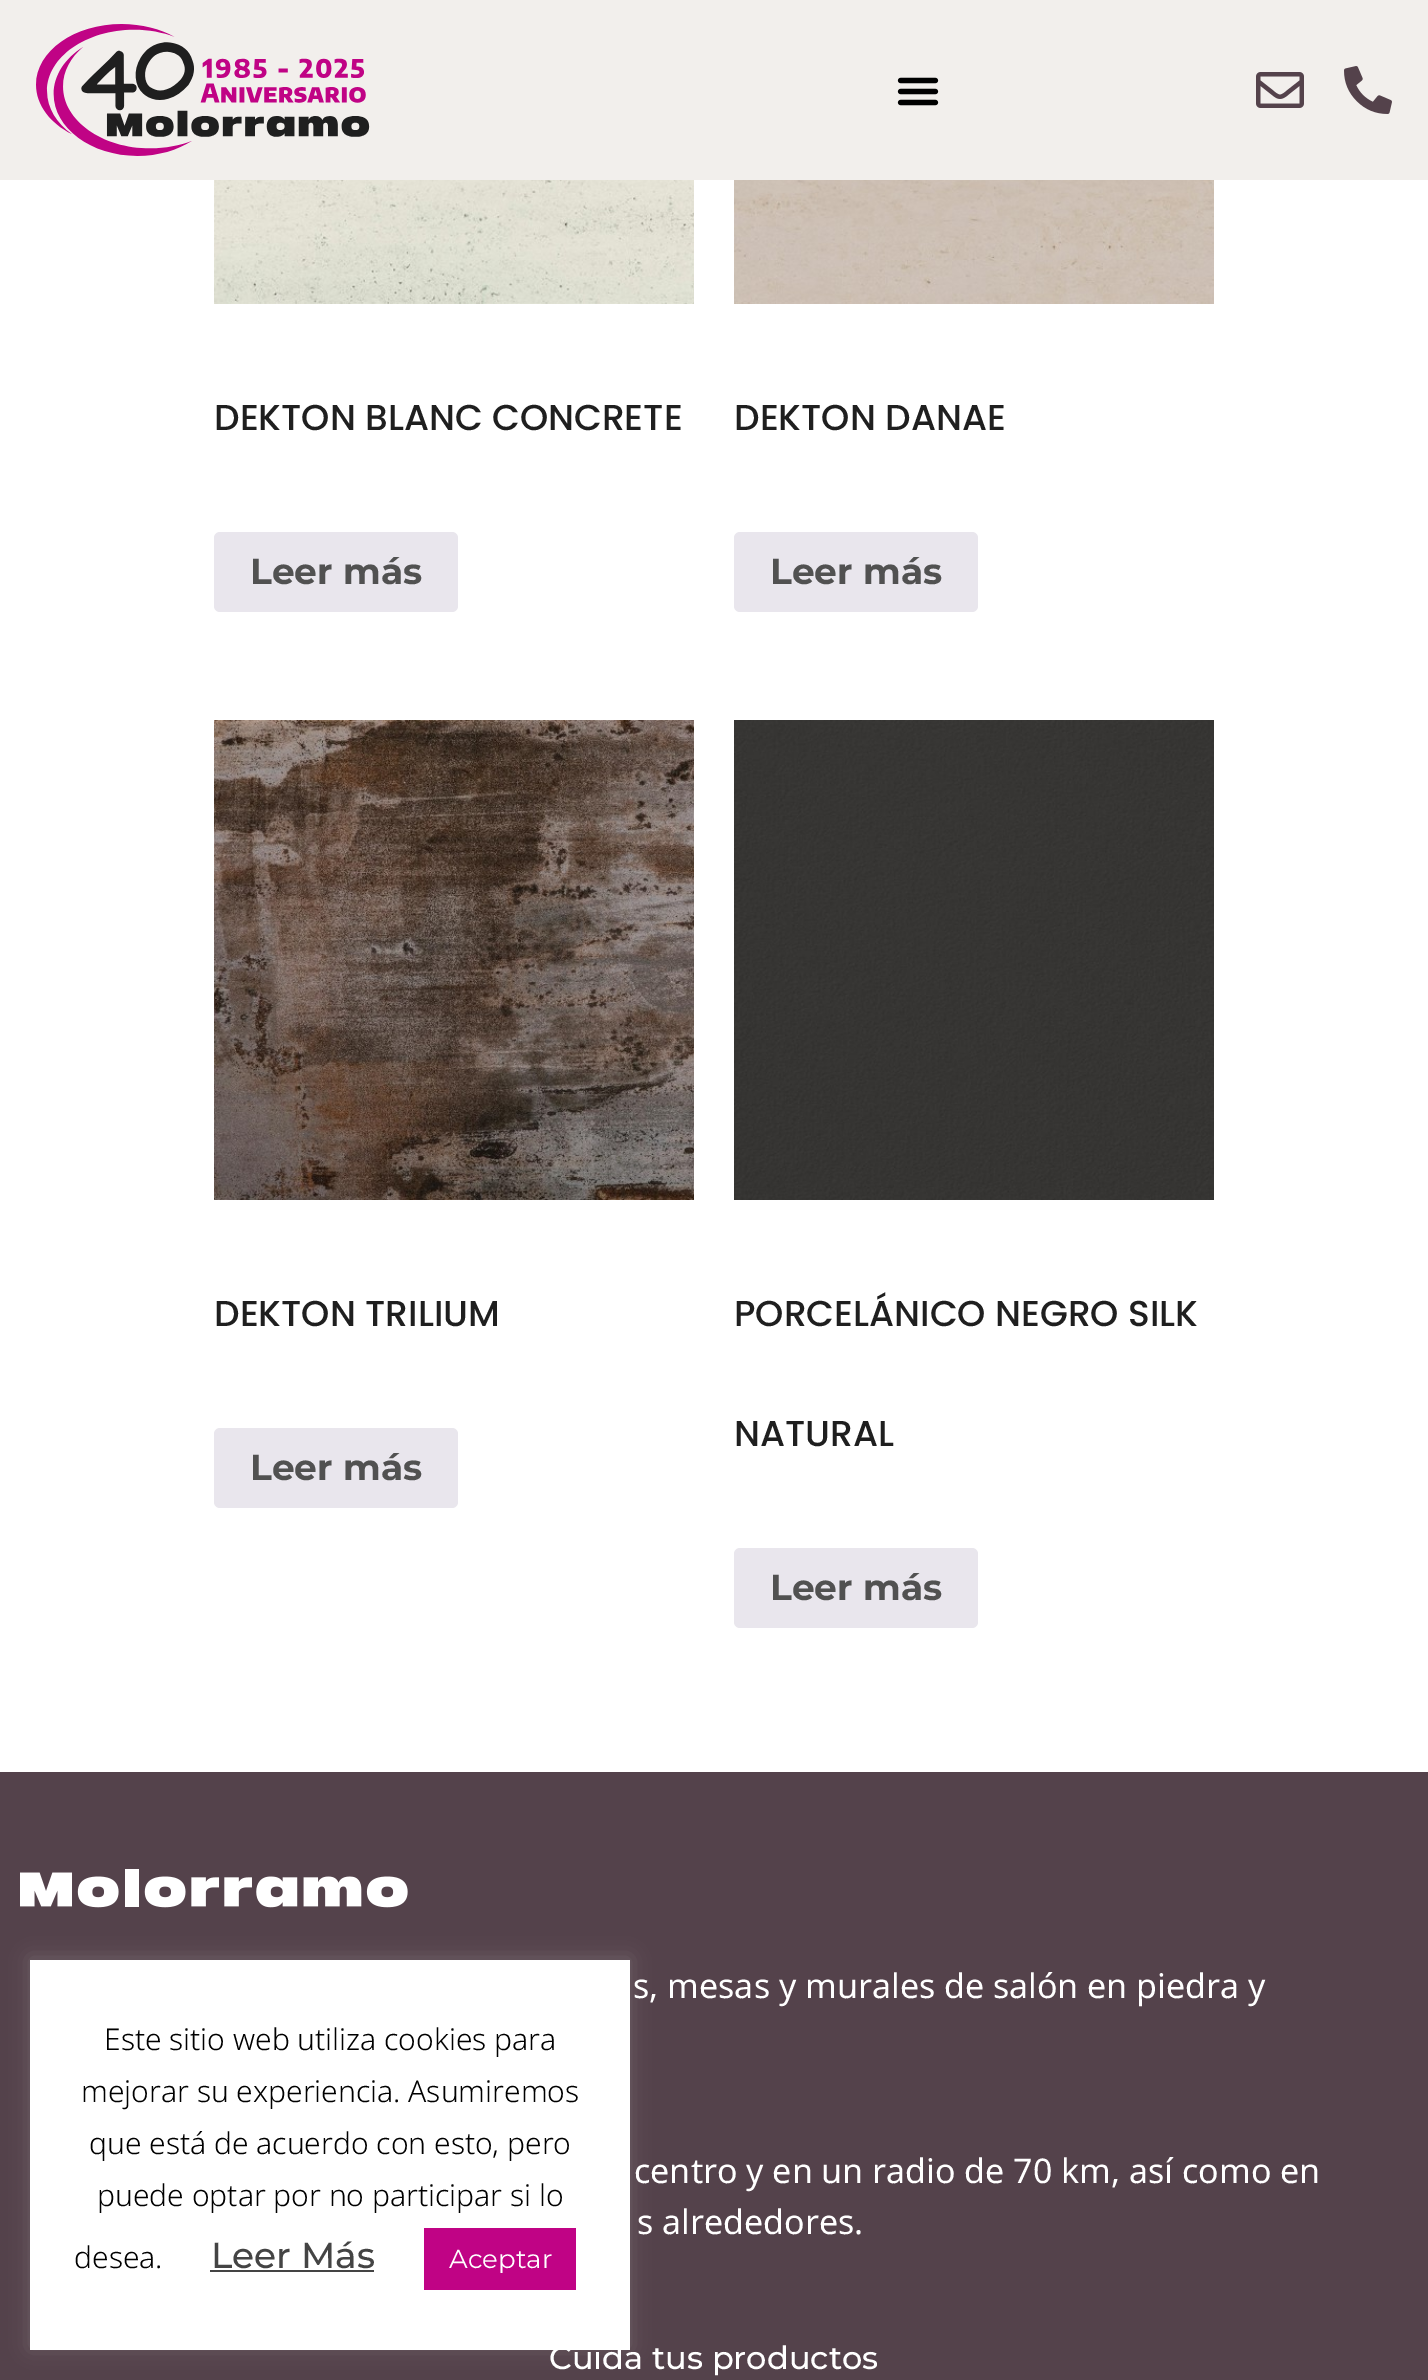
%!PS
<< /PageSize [1428 2380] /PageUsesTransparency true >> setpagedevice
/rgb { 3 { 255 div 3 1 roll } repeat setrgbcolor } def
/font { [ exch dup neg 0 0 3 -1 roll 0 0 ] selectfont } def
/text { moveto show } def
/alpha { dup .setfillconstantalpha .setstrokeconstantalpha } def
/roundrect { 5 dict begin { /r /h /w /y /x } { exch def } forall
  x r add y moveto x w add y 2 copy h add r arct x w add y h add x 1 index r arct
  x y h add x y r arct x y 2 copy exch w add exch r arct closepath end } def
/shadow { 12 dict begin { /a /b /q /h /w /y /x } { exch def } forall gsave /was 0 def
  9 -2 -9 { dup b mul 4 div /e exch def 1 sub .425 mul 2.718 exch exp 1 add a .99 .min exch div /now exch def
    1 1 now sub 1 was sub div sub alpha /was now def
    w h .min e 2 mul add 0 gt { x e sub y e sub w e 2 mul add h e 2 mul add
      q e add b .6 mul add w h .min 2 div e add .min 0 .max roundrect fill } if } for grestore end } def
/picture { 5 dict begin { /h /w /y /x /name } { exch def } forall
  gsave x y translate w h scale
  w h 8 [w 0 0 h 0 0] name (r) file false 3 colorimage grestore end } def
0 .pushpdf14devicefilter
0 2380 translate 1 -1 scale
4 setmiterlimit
255 255 255 rgb
0 0 1428 2380 rectfill
242 239 236 rgb
0 0 1428 180 rectfill
(img_01.rgb) 36 24 334 132 picture
(img_02.rgb) 897 77 42 29 picture
(img_03.rgb) 1256 72 48 36 picture
(img_04.rgb) 1344 66 48 48 picture
(img_05.rgb) 214 180 480 124 picture
233 230 237 rgb
214 532 244 80 6 roundrect fill
(img_06.rgb) 734 180 480 124 picture
734 532 244 80 6 roundrect fill
(img_07.rgb) 214 720 480 480 picture
214 1428 244 80 6 roundrect fill
(img_08.rgb) 734 720 480 480 picture
734 1548 244 80 6 roundrect fill
84 66 75 rgb
0 1772 1428 608 rectfill
172 171 171 rgb
30 1958 600 390 0 10 0.3 shadow
255 255 255 rgb
30 1960 600 390 rectfill
68 68 68 rgb
210 2270 164 2 rectfill
192 3 133 rgb
424 2228 152 62 rectfill
(img_09.rgb) 20 1869 388 39 picture
/Poppins-Medium 36 font
31 31 31 rgb
(DEKTON BLANC CONCRETE) 214 430 text
/Montserrat-Bold 36 font
81 81 81 rgb
(Leer más) 250 584 text
/Poppins-Medium 36 font
31 31 31 rgb
(DEKTON DANAE) 734 430 text
/Montserrat-Bold 36 font
81 81 81 rgb
(Leer más) 770 584 text
/Poppins-Medium 36 font
31 31 31 rgb
(DEKTON TRILIUM) 214 1326 text
/Montserrat-Bold 36 font
81 81 81 rgb
(Leer más) 250 1480 text
/Poppins-Medium 36 font
31 31 31 rgb
(PORCELÁNICO NEGRO SILK) 734 1326 text
(NATURAL) 734 1446 text
/Montserrat-Bold 36 font
81 81 81 rgb
(Leer más) 770 1600 text
/NotoSans-Light 30 font
0 0 0 rgb
(Este sitio web utiliza cookies para) 104 2050 text
(mejorar su experiencia. Asumiremos) 81 2102 text
(que está de acuerdo con esto, pero) 89 2154 text
(puede optar por no participar si lo) 97 2206 text
(desea.) 74 2268 text
/Montserrat-Medium 36 font
68 68 68 rgb
(Leer Más) 211 2268 text
/Montserrat-Regular 26 font
255 255 255 rgb
(Aceptar) 449 2268 text
/NotoSans-Regular 34 font
(s, mesas y murales de salón en piedra y) 633 1998 text
(centro y en un radio de 70 km, así como en) 634 2183 text
(s alrededores.) 637 2234 text
/Montserrat-Medium 32 font
(Cuida tus productos) 549 2369 text
.poppdf14devicefilter showpage
